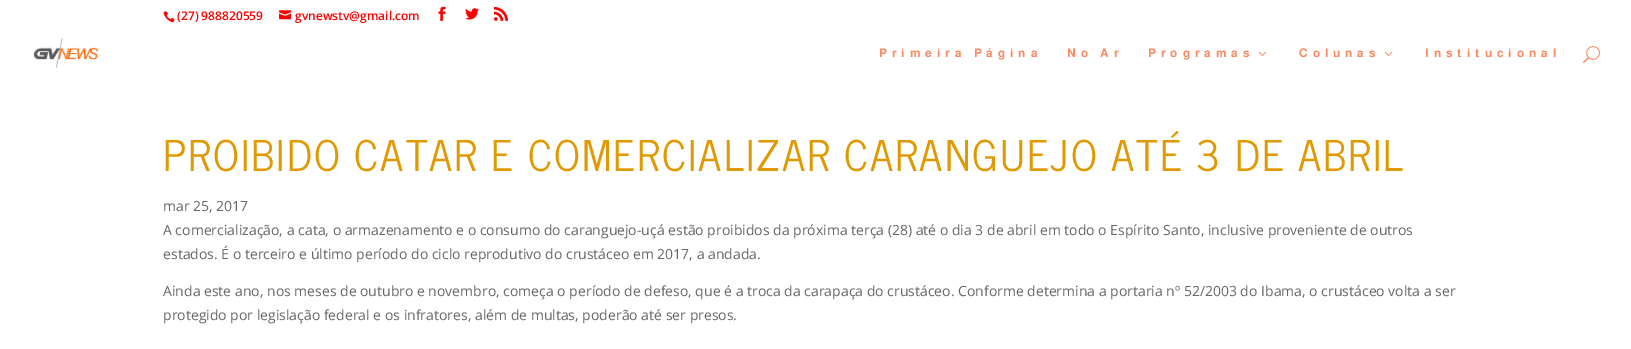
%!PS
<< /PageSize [1631 349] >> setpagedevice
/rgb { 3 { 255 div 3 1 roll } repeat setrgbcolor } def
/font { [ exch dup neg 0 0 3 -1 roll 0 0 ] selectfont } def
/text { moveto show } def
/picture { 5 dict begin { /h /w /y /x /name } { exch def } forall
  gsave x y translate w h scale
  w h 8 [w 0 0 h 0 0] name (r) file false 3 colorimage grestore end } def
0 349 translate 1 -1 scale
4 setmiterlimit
255 255 255 rgb
0 0 1631 349 rectfill
(img_01.rgb) 163 11 12 12 picture
(img_02.rgb) 279 10 12 10 picture
(img_03.rgb) 438 6 8 15 picture
(img_04.rgb) 465 8 14 12 picture
(img_05.rgb) 494 6 14 15 picture
(img_06.rgb) 33 38 66 30 picture
(img_07.rgb) 1258 51 9 5 picture
(img_07.rgb) 1384 51 9 5 picture
(img_08.rgb) 1583 46 17 18 picture
/OpenSans-SemiBold 12 font
255 0 0 rgb
(\(27\) 988820559) 177 20 text
(gvnewstv@gmail.com) 295 20 text
/Almarai-Bold 12 font
247 138 98 rgb
879 57 moveto 5 0 (Primeira Página) ashow
1067 57 moveto 5 0 (No Ar) ashow
1148 57 moveto 5 0 (Programas) ashow
1299 57 moveto 5 0 (Colunas) ashow
1425 57 moveto 5 0 (Institucional) ashow
/NewsCycle-Regular 42 font
224 153 0 rgb
163 171 moveto 2 0 (PROIBIDO CATAR E COMERCIALIZAR CARANGUEJO ATÉ 3 DE ABRIL) ashow
/OpenSans-Regular 14 font
102 102 102 rgb
(mar 25, 2017) 163 211 text
(A comercialização, a cata, o armazenamento e o consumo do caranguejo-uçá estão proibidos da próxima terça \(28\) até o dia 3 de abril em todo o Espírito Santo, inclusive proveniente de outros) 163 235 text
(estados. É o terceiro e último período do ciclo reprodutivo do crustáceo em 2017, a andada.) 163 259 text
(Ainda este ano, nos meses de outubro e novembro, começa o período de defeso, que é a troca da carapaça do crustáceo. Conforme determina a portaria nº 52/2003 do Ibama, o crustáceo volta a ser) 163 296 text
(protegido por legislação federal e os infratores, além de multas, poderão até ser presos.) 163 320 text
showpage
